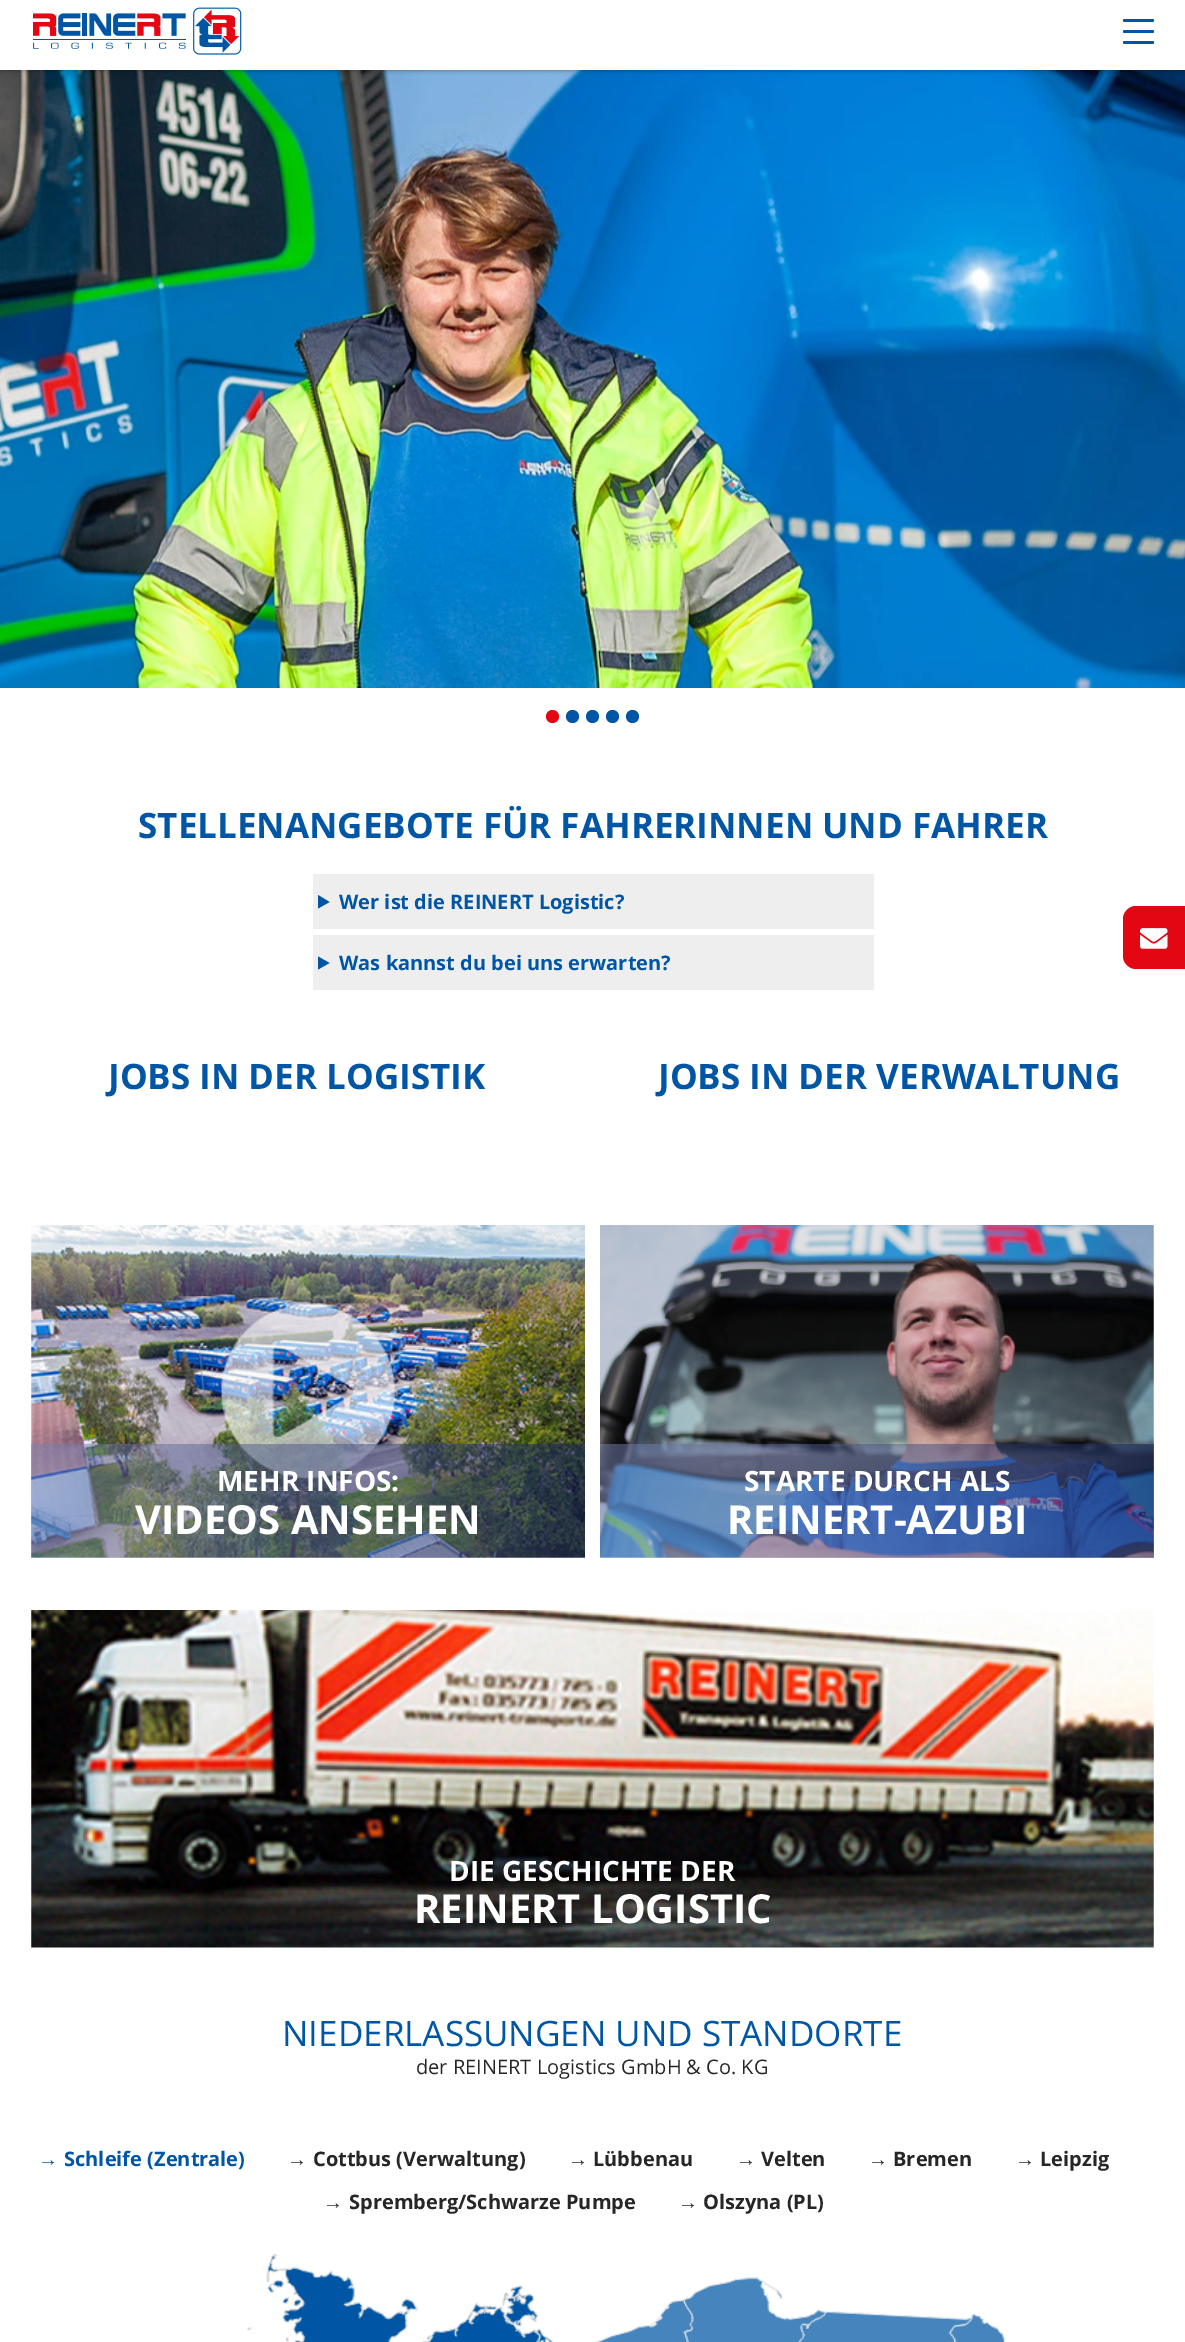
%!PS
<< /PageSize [1185 2342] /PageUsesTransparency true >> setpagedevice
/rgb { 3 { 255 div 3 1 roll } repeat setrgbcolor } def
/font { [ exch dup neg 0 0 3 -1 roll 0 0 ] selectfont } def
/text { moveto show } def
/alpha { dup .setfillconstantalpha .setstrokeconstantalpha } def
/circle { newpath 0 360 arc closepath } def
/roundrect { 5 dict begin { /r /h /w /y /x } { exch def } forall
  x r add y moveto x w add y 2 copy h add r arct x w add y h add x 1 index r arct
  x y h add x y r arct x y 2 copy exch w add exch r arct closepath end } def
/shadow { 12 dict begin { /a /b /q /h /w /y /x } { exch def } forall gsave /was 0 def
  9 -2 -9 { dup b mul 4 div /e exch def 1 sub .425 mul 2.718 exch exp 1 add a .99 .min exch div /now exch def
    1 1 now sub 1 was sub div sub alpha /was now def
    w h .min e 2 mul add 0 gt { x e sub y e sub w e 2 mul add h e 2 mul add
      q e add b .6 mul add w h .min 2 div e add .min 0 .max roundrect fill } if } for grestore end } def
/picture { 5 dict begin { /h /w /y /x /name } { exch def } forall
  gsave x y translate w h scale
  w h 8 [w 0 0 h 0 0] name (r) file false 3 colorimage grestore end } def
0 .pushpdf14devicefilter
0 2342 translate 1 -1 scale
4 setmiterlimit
255 255 255 rgb
0 0 1185 2342 rectfill
(img_02.rgb) 0 70 1185 618 picture
0 0 0 rgb
0 1 1185 70 0 2 0.29 shadow
255 255 255 rgb
0 0 1185 70 rectfill
(img_01.rgb) 33 7 209 48 picture
0 86 164 rgb
1123 19 31 3 1.5 roundrect fill
1123 30 31 3 1.5 roundrect fill
1123 41 31 3 1.5 roundrect fill
227 6 19 rgb
552.5 716.5 6.5 circle fill
0 86 164 rgb
572.5 716.5 6.5 circle fill
592.5 716.5 6.5 circle fill
612.5 716.5 6.5 circle fill
632.5 716.5 6.5 circle fill
238 238 238 rgb
313 874 561 55 rectfill
0 85 163 rgb
318 895 moveto 11.5 7 rlineto -11.5 6.5 rlineto closepath fill
238 238 238 rgb
313 935 561 55 rectfill
0 85 163 rgb
318 956.5 moveto 11.5 6.5 rlineto -11.5 6.5 rlineto closepath fill
(img_03.rgb) 31 1225 554 333 picture
0.5 alpha
gsave 31 1444 moveto 554 0 rlineto 0 114 rlineto -554 0 rlineto closepath clip newpath
<< /ShadingType 2 /ColorSpace /DeviceRGB /Coords [141 1668 475 1334] /Extend [true true] /Function << /FunctionType 2 /Domain [0 1] /C0 [0.553 0.592 0.776] /C1 [0.071 0.133 0.361] /N 1 >> >> shfill grestore
1 alpha
(img_04.rgb) 600 1225 554 333 picture
0.5 alpha
gsave 600 1444 moveto 554 0 rlineto 0 114 rlineto -554 0 rlineto closepath clip newpath
<< /ShadingType 2 /ColorSpace /DeviceRGB /Coords [710 1668 1044 1334] /Extend [true true] /Function << /FunctionType 2 /Domain [0 1] /C0 [0.553 0.592 0.776] /C1 [0.071 0.133 0.361] /N 1 >> >> shfill grestore
1 alpha
(img_05.rgb) 31 1610 1123 338 picture
(img_06.rgb) 247 2253 759 89 picture
227 6 19 rgb
1136 906 moveto 49 0 rlineto 0 63 rlineto -49 0 rlineto -7 0 -13 -6 -13 -13 rcurveto 0 -37 rlineto 0 -7 6 -13 13 -13 rcurveto closepath fill
(img_07.rgb) 1140 928 28 21 picture
/OpenSans-Bold 35 font
0 86 164 rgb
(STELLENANGEBOTE FÜR FAHRERINNEN UND FAHRER) 138 838 text
/OpenSans-Bold 20 font
(Wer ist die REINERT Logistic?) 339 909 text
(Was kannst du bei uns erwarten?) 339 970 text
/OpenSans-Bold 35 font
(JOBS IN DER LOGISTIK) 108 1089 text
(JOBS IN DER VERWALTUNG) 658 1089 text
/OpenSans-Bold 28 font
255 255 255 rgb
(MEHR INFOS:) 217 1491 text
/OpenSans-Bold 40 font
(VIDEOS ANSEHEN) 135 1534 text
/OpenSans-Bold 28 font
(STARTE DURCH ALS) 744 1491 text
/OpenSans-Bold 40 font
(REINERT-AZUBI) 727 1534 text
/OpenSans-Bold 28 font
(DIE GESCHICHTE DER) 449 1881 text
/OpenSans-Bold 40 font
(REINERT LOGISTIC) 414 1923 text
/OpenSans-Regular 35 font
0 86 164 rgb
(NIEDERLASSUNGEN UND STANDORTE) 282 2046 text
/OpenSans-Regular 20 font
38 38 38 rgb
(der REINERT Logistics GmbH & Co. KG) 416 2074 text
/LiberationSans-Bold 20 font
0 86 164 rgb
(→) 38 2166 text
/OpenSans-Bold 20 font
(Schleife \(Zentrale\)) 64 2166 text
/LiberationSans-Bold 20 font
38 38 38 rgb
(→) 287 2166 text
/OpenSans-Bold 20 font
(Cottbus \(Verwaltung\)) 313 2166 text
/LiberationSans-Bold 20 font
(→) 568 2166 text
/OpenSans-Bold 20 font
(Lübbenau) 593 2166 text
/LiberationSans-Bold 20 font
(→) 736 2166 text
/OpenSans-Bold 20 font
(Velten) 761 2166 text
/LiberationSans-Bold 20 font
(→) 868 2166 text
/OpenSans-Bold 20 font
(Bremen) 893 2166 text
/LiberationSans-Bold 20 font
(→) 1015 2166 text
/OpenSans-Bold 20 font
(Leipzig) 1040 2166 text
/LiberationSans-Bold 20 font
(→) 323 2209 text
/OpenSans-Bold 20 font
(Spremberg/Schwarze Pumpe) 349 2209 text
/LiberationSans-Bold 20 font
(→) 678 2209 text
/OpenSans-Bold 20 font
(Olszyna \(PL\)) 703 2209 text
.poppdf14devicefilter showpage
